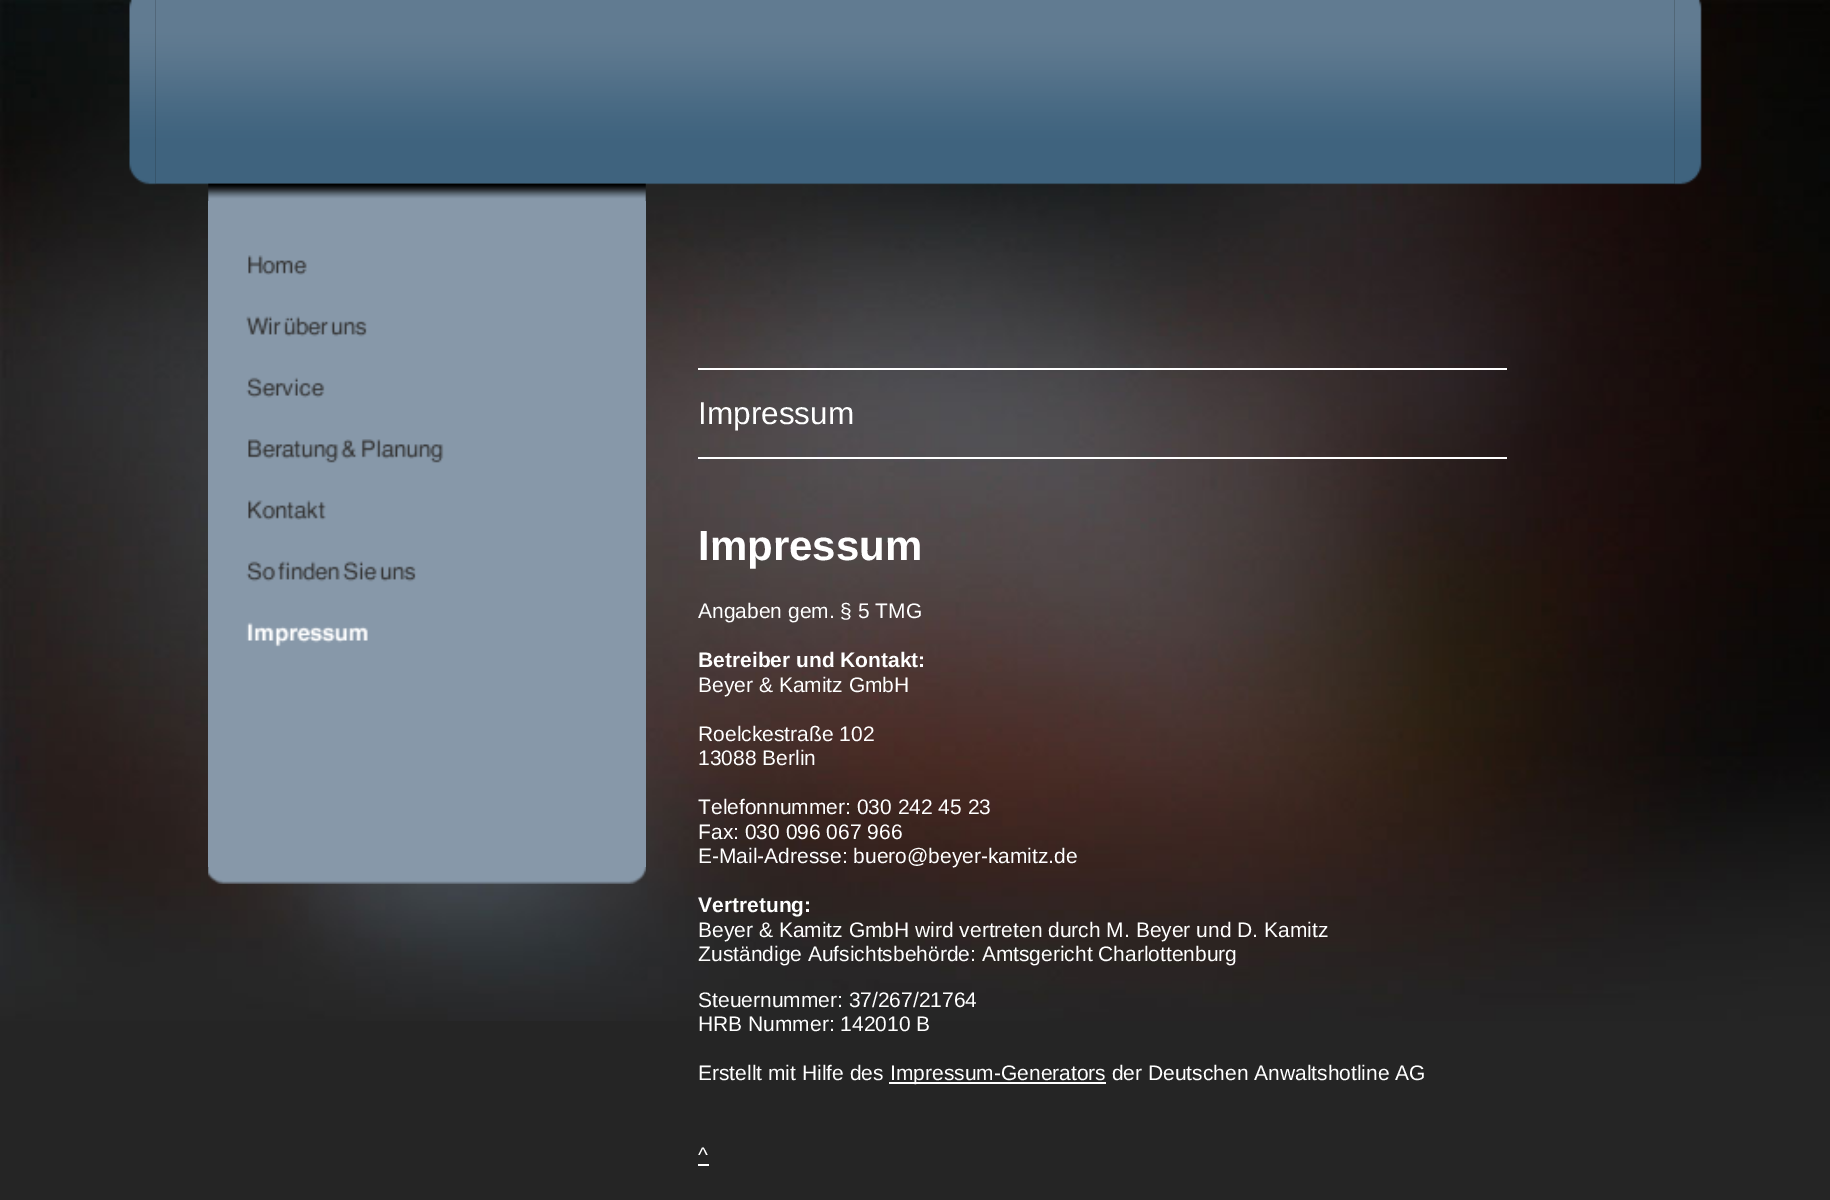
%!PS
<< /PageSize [1830 1200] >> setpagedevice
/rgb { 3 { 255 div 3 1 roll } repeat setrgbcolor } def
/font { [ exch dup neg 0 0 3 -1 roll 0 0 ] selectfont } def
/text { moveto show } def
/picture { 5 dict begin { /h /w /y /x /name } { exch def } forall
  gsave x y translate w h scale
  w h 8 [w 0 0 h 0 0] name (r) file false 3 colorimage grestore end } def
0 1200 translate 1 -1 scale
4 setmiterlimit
37 37 37 rgb
0 0 1830 1200 rectfill
(img_01.rgb) 0 0 1830 1021 picture
(img_03.rgb) 155 0 1520 185 picture
(img_02.rgb) 129 0 27 185 picture
(img_04.rgb) 1674 0 28 185 picture
(img_05.rgb) 208 183 438 18 picture
135 152 169 rgb
208 201 438 666 rectfill
(img_06.rgb) 248 255 59 20 picture
(img_07.rgb) 246 316 121 21 picture
(img_08.rgb) 246 377 79 21 picture
(img_09.rgb) 248 439 196 24 picture
(img_10.rgb) 248 500 78 20 picture
(img_11.rgb) 246 561 170 21 picture
(img_12.rgb) 246 622 122 25 picture
(img_13.rgb) 208 867 438 17 picture
255 255 255 rgb
698 368 809 2 rectfill
698 457 809 2 rectfill
889 1082 217 2 rectfill
698 1164 11 2 rectfill
/LiberationSans-Regular 31.5 font
(Impressum) 698 424 text
/LiberationSans-Bold 42 font
(Impressum) 698 560 text
/LiberationSans-Regular 21 font
(Angaben gem. § 5 TMG) 698 618 text
/LiberationSans-Bold 21 font
(Betreiber und Kontakt:) 698 667 text
/LiberationSans-Regular 21 font
(Beyer & Kamitz GmbH) 698 692 text
(Roelckestraße 102) 698 741 text
(13088 Berlin) 698 765 text
(Telefonnummer: 030 242 45 23) 698 814 text
(Fax: 030 096 067 966) 698 839 text
(E-Mail-Adresse: buero@beyer-kamitz.de) 698 863 text
/LiberationSans-Bold 21 font
(Vertretung:) 698 912 text
/LiberationSans-Regular 21 font
(Beyer & Kamitz GmbH wird vertreten durch M. Beyer und D. Kamitz) 698 937 text
(Zuständige Aufsichtsbehörde: Amtsgericht Charlottenburg) 698 961 text
(Steuernummer: 37/267/21764) 698 1007 text
(HRB Nummer: 142010 B) 698 1031 text
(Erstellt mit Hilfe des) 698 1080 text
(Impressum-Generators der Deutschen Anwaltshotline AG) 890 1080 text
(^) 698 1162 text
showpage
